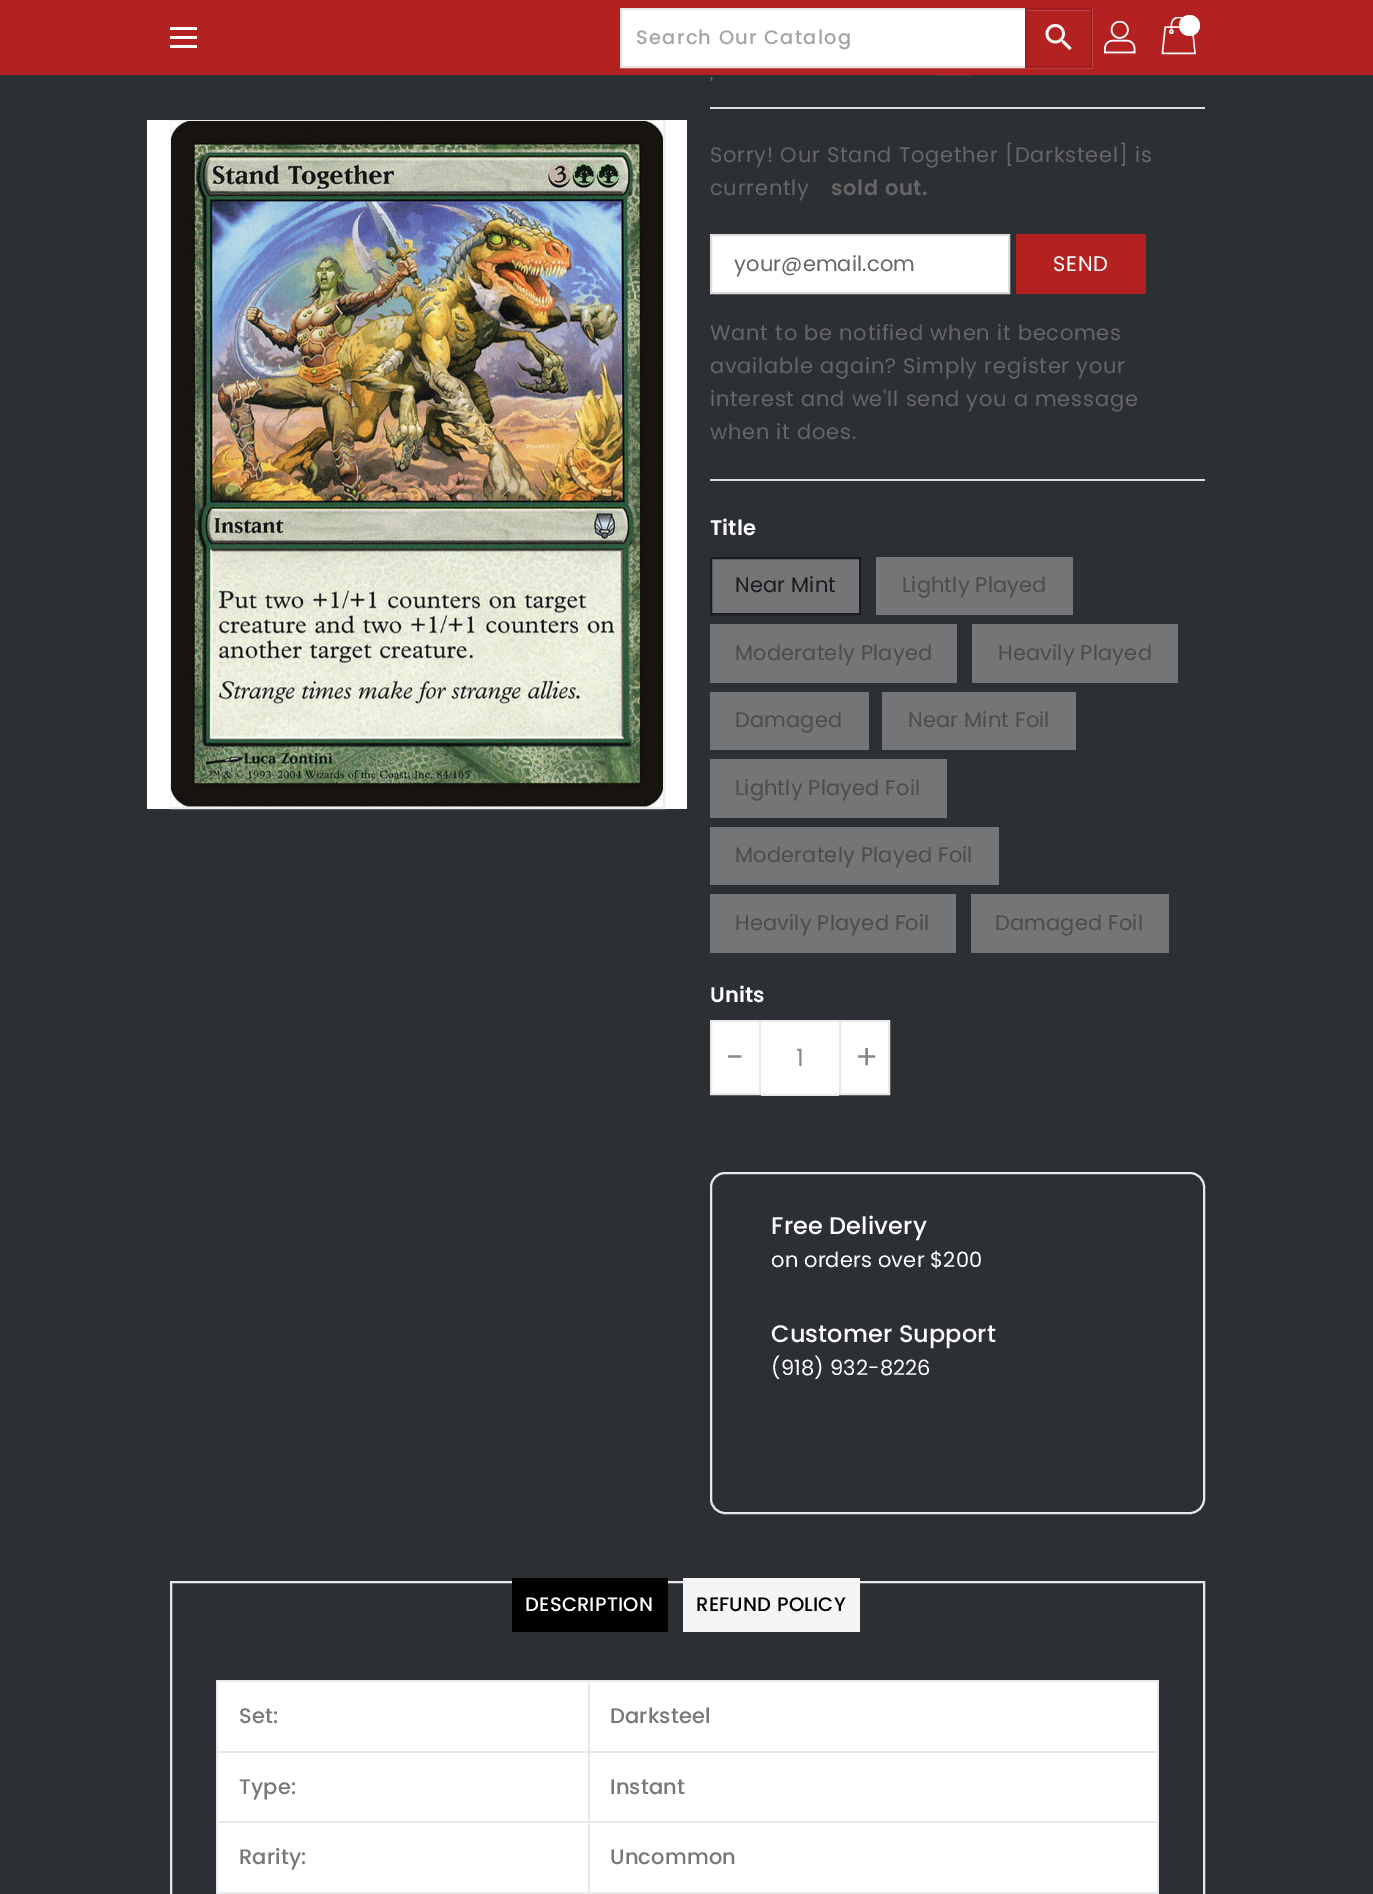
%!PS
<< /PageSize [1373 1894] >> setpagedevice
/rgb { 3 { 255 div 3 1 roll } repeat setrgbcolor } def
/font { [ exch dup neg 0 0 3 -1 roll 0 0 ] selectfont } def
/circle { newpath 0 360 arc closepath } def
/roundrect { 5 dict begin { /r /h /w /y /x } { exch def } forall
  x r add y moveto x w add y 2 copy h add r arct x w add y h add x 1 index r arct
  x y h add x y r arct x y 2 copy exch w add exch r arct closepath end } def
/picture { 5 dict begin { /h /w /y /x /name } { exch def } forall
  gsave x y translate w h scale
  w h 8 [w 0 0 h 0 0] name (r) file false 3 colorimage grestore end } def
0 1894 translate 1 -1 scale
4 setmiterlimit
44 47 51 rgb
0 0 1373 1894 rectfill
180 33 33 rgb
0 0 1373 75 rectfill
255 255 255 rgb
170 27 27 3 rectfill
170 36 27 3 rectfill
170 45 27 3 rectfill
622 10 403 56 rectfill
230 230 230 rgb
2 setlinewidth
621 9 470 58 rectstroke
162 30 30 rgb
1026 9 65 58 rectstroke
(img_01.rgb) 1045 24 27 27 picture
(img_02.rgb) 1104 21 32 33 picture
(img_03.rgb) 1161 17 35 38 picture
255 255 255 rgb
1189.5 25.5 10.5 circle fill
147 120 540 689 rectfill
238 238 238 rgb
171 121 493 687 rectstroke
(img_04.rgb) 171 121 492 686 picture
(img_05.rgb) 935 75 39 1 picture
(img_06.rgb) 710 77 3 4 picture
221 221 221 rgb
710 107 495 2 rectfill
710 479 495 2 rectfill
255 255 255 rgb
711 235 moveto 298 0 rlineto 0 58 rlineto -298 0 rlineto closepath gsave fill grestore
221 221 221 rgb
stroke
180 33 33 rgb
1016 234 130 60 rectfill
115 117 119 rgb
711 558 moveto 149 0 rlineto 0 56 rlineto -149 0 rlineto closepath gsave fill grestore
26 28 31 rgb
stroke
115 117 119 rgb
876 557 197 58 rectfill
710 624 247 59 rectfill
972 624 206 59 rectfill
710 692 159 58 rectfill
882 692 194 58 rectfill
710 759 237 59 rectfill
710 827 289 58 rectfill
710 894 246 59 rectfill
971 894 198 59 rectfill
255 255 255 rgb
711 1021 moveto 49 0 rlineto 0 73 rlineto -49 0 rlineto closepath gsave fill grestore
233 233 233 rgb
stroke
255 255 255 rgb
761 1022 78 72 rectfill
233 233 233 rgb
761 1020 78 2 rectfill
761 1094 78 2 rectfill
255 255 255 rgb
840 1021 moveto 49 0 rlineto 0 73 rlineto -49 0 rlineto closepath gsave fill grestore
233 233 233 rgb
stroke
711 1173 493 340 14 roundrect stroke
171 1582 1033 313 rectstroke
0 0 0 rgb
512 1578 156 54 rectfill
245 245 245 rgb
683 1578 177 54 rectfill
255 255 255 rgb
218 1682 939 210 rectfill
232 233 235 rgb
588 1680 570 2 rectfill
588 1751 570 2 rectfill
588 1821 570 2 rectfill
216 1892 942 2 rectfill
588 1821 2 72 rectfill
216 1821 374 2 rectfill
588 1751 2 72 rectfill
216 1751 374 2 rectfill
588 1680 2 72 rectfill
216 1680 374 2 rectfill
216 1821 2 72 rectfill
216 1751 2 72 rectfill
216 1680 2 72 rectfill
1157 1821 2 72 rectfill
1157 1751 2 72 rectfill
1157 1680 2 72 rectfill
1157 1893 2 1 rectfill
/Poppins-Medium 19.5 font
165 165 165 rgb
636 44 moveto 1.25 0 (Search Our Catalog) ashow
/Poppins-Regular 21 font
102 102 102 rgb
710 162 moveto 0.75 0 (Sorry! Our Stand Together [Darksteel] is) ashow
710 195 moveto 0.75 0 (currently) ashow
/Poppins-SemiBold 21 font
831 195 moveto 0.75 0 (sold out.) ashow
/Poppins-Regular 21 font
734 271 moveto 0.15 0 (your@email.com) ashow
255 255 255 rgb
1053 271 moveto 0.75 0 (SEND) ashow
102 102 102 rgb
710 340 moveto 0.75 0 (Want to be notified when it becomes) ashow
710 373 moveto 0.75 0 (available again? Simply register your) ashow
710 406 moveto 0.75 0 (interest and we'll send you a message) ashow
710 439 moveto 0.75 0 (when it does.) ashow
/Poppins-SemiBold 21 font
255 255 255 rgb
710 535 moveto 0.15 0 (Title) ashow
/Poppins-Regular 21 font
26 28 31 rgb
735 592 moveto 0.15 0 (Near Mint) ashow
74 76 78 rgb
902 592 moveto 0.15 0 (Lightly Played) ashow
735 660 moveto 0.15 0 (Moderately Played) ashow
998 660 moveto 0.15 0 (Heavily Played) ashow
735 727 moveto 0.15 0 (Damaged) ashow
908 727 moveto 0.15 0 (Near Mint Foil) ashow
735 795 moveto 0.15 0 (Lightly Played Foil) ashow
735 862 moveto 0.15 0 (Moderately Played Foil) ashow
735 930 moveto 0.15 0 (Heavily Played Foil) ashow
995 930 moveto 0.15 0 (Damaged Foil) ashow
/Poppins-SemiBold 21 font
255 255 255 rgb
710 1002 moveto 0.15 0 (Units) ashow
/Poppins-Regular 34 font
136 136 136 rgb
726 1069 moveto 0.75 0 (-) ashow
/Poppins-Regular 24 font
796 1066 moveto 0.15 0 (1) ashow
/Poppins-Regular 34 font
855 1069 moveto 0.75 0 (+) ashow
/Poppins-Medium 24 font
255 255 255 rgb
771 1234 moveto 0.15 0 (Free Delivery) ashow
/Poppins-Regular 21 font
771 1267 moveto 0.15 0 (on orders over $200) ashow
/Poppins-Medium 24 font
771 1342 moveto 0.15 0 (Customer Support) ashow
/Poppins-Regular 21 font
771 1375 moveto 0.15 0 (\(918\) 932-8226) ashow
/Poppins-Medium 19.5 font
525 1611 moveto 0.25 0 (DESCRIPTION) ashow
0 0 0 rgb
696 1611 moveto 0.25 0 (REFUND POLICY) ashow
/Poppins-Medium 21 font
120 120 120 rgb
239 1723 moveto 0.15 0 (Set:) ashow
610 1723 moveto 0.15 0 (Darksteel) ashow
239 1794 moveto 0.15 0 (Type:) ashow
610 1794 moveto 0.15 0 (Instant) ashow
239 1864 moveto 0.15 0 (Rarity:) ashow
610 1864 moveto 0.15 0 (Uncommon) ashow
showpage
